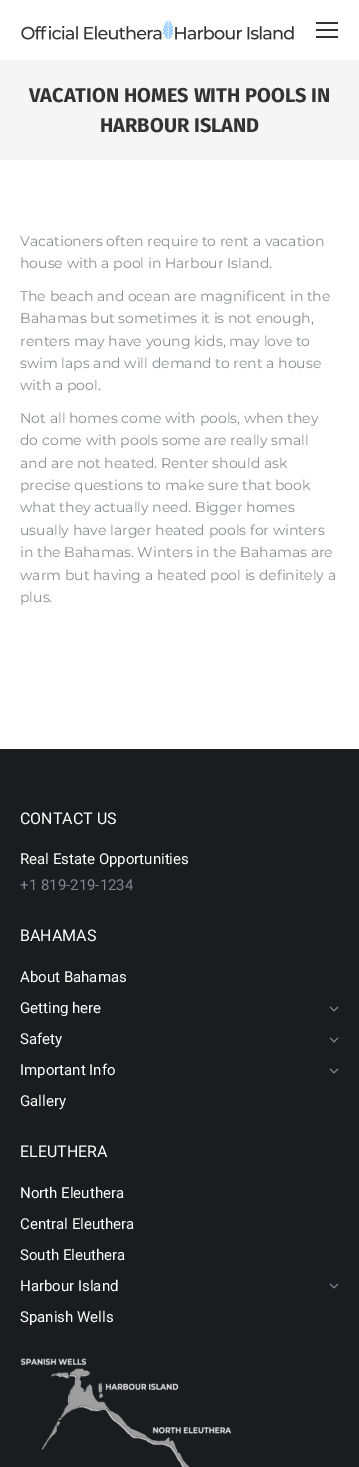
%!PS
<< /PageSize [359 1467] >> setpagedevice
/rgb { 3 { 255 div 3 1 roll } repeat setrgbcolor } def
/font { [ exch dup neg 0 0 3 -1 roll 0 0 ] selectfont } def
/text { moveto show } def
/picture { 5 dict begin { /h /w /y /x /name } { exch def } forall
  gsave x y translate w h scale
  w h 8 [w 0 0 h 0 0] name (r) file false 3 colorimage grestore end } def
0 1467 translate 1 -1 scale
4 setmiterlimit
255 255 255 rgb
0 0 359 1467 rectfill
(img_01.rgb) 21 20 273 20 picture
51 51 51 rgb
316 22 22 2 rectfill
316 29 22 2 rectfill
316 36 22 2 rectfill
245 245 245 rgb
0 60 359 100 rectfill
26 28 32 rgb
0 749 359 718 rectfill
(img_02.rgb) 329 1006 10 6 picture
(img_02.rgb) 329 1037 10 6 picture
(img_02.rgb) 329 1068 10 6 picture
(img_02.rgb) 329 1283 10 6 picture
(img_03.rgb) 20 1358 212 109 picture
/FiraSans-Bold 20 font
51 51 51 rgb
(VACATION HOMES WITH POOLS IN) 29 102 text
(HARBOUR ISLAND) 100 132 text
/Montserrat-Regular 14 font
139 141 148 rgb
(Vacationers often require to rent a vacation) 20 246 text
(house with a pool in Harbour Island.) 20 268 text
(The beach and ocean are magnificent in the) 20 301 text
(Bahamas but sometimes it is not enough,) 20 323 text
(renters may have young kids, may love to) 20 346 text
(swim laps and will demand to rent a house) 20 368 text
(with a pool.) 20 390 text
(Not all homes come with pools, when they) 20 423 text
(do come with pools some are really small) 20 445 text
(and are not heated. Renter should ask) 20 468 text
(precise questions to make sure that book) 20 490 text
(what they actually need. Bigger homes) 20 512 text
(usually have larger heated pools for winters) 20 535 text
(in the Bahamas. Winters in the Bahamas are) 20 557 text
(warm but having a heated pool is definitely a) 20 580 text
(plus.) 20 602 text
/Roboto-Regular 16 font
255 255 255 rgb
(CONTACT US) 20 824 text
/Roboto-Regular 15 font
(Real Estate Opportunities) 20 864 text
133 134 140 rgb
(+1 819-219-1234) 20 890 text
/Roboto-Regular 16 font
255 255 255 rgb
(BAHAMAS) 20 941 text
/Roboto-Regular 15 font
(About Bahamas) 20 982 text
(Getting here) 20 1013 text
(Safety) 20 1044 text
(Important Info) 20 1075 text
(Gallery) 20 1106 text
/Roboto-Regular 16 font
(ELEUTHERA) 20 1157 text
/Roboto-Regular 15 font
(North Eleuthera) 20 1198 text
(Central Eleuthera) 20 1229 text
(South Eleuthera) 20 1260 text
(Harbour Island) 20 1291 text
(Spanish Wells) 20 1322 text
showpage
